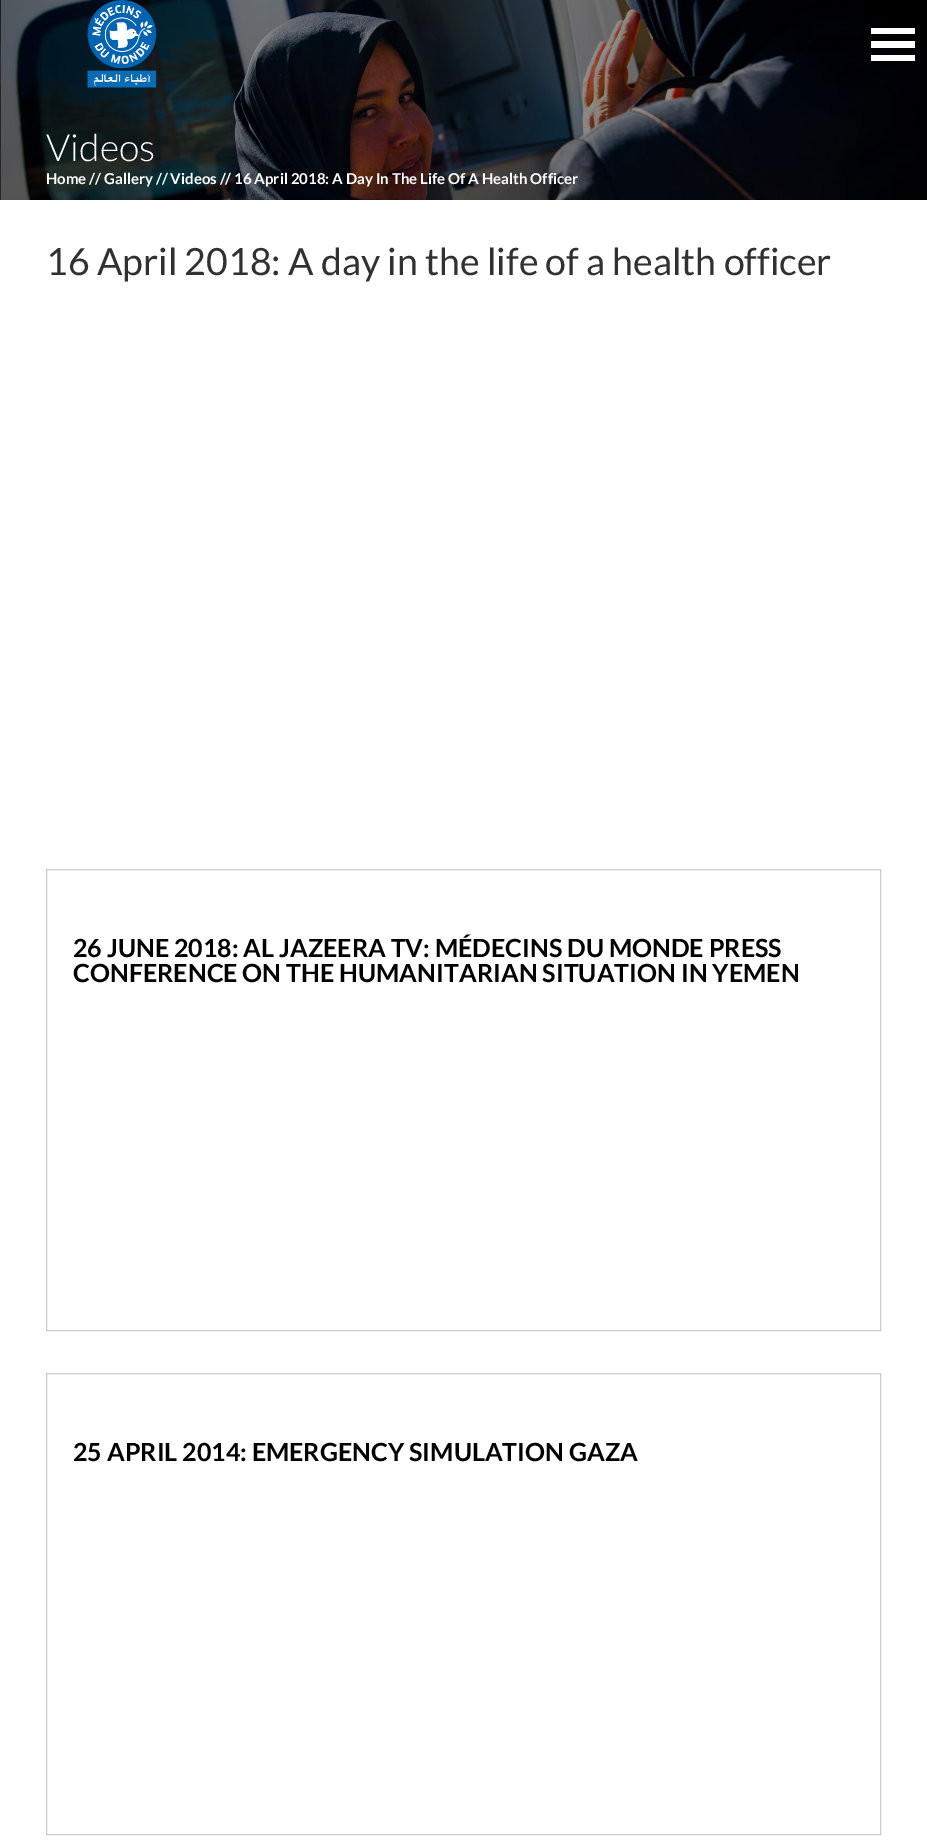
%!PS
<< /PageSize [927 1840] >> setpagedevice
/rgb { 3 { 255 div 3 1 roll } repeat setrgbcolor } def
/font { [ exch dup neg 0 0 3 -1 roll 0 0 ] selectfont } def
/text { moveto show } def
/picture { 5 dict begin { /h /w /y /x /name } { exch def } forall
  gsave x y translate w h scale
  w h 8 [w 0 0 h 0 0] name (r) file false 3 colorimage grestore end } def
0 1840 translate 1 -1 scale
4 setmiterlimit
255 255 255 rgb
0 0 927 1840 rectfill
(img_02.rgb) 0 0 927 200 picture
(img_01.rgb) 87 0 70 88 picture
871 28 44 6 rectfill
871 41 44 7 rectfill
871 55 44 6 rectfill
204 204 204 rgb
46.5 869.5 834 461 rectstroke
46.5 1373.5 834 461 rectstroke
/Lato-Light 37.5 font
255 255 255 rgb
(Videos) 46 161 text
/Lato-Bold 15 font
(Home // Gallery // Videos // 16 April 2018: A Day In The Life Of A Health Officer) 46 184 text
/Lato-Regular 37.5 font
49 49 49 rgb
(16 April 2018: A day in the life of a health officer) 46 275 text
/Lato-Bold 25 font
0 0 0 rgb
(26 JUNE 2018: AL JAZEERA TV: MÉDECINS DU MONDE PRESS) 73 957 text
(CONFERENCE ON THE HUMANITARIAN SITUATION IN YEMEN) 73 982 text
(25 APRIL 2014: EMERGENCY SIMULATION GAZA) 73 1461 text
showpage
